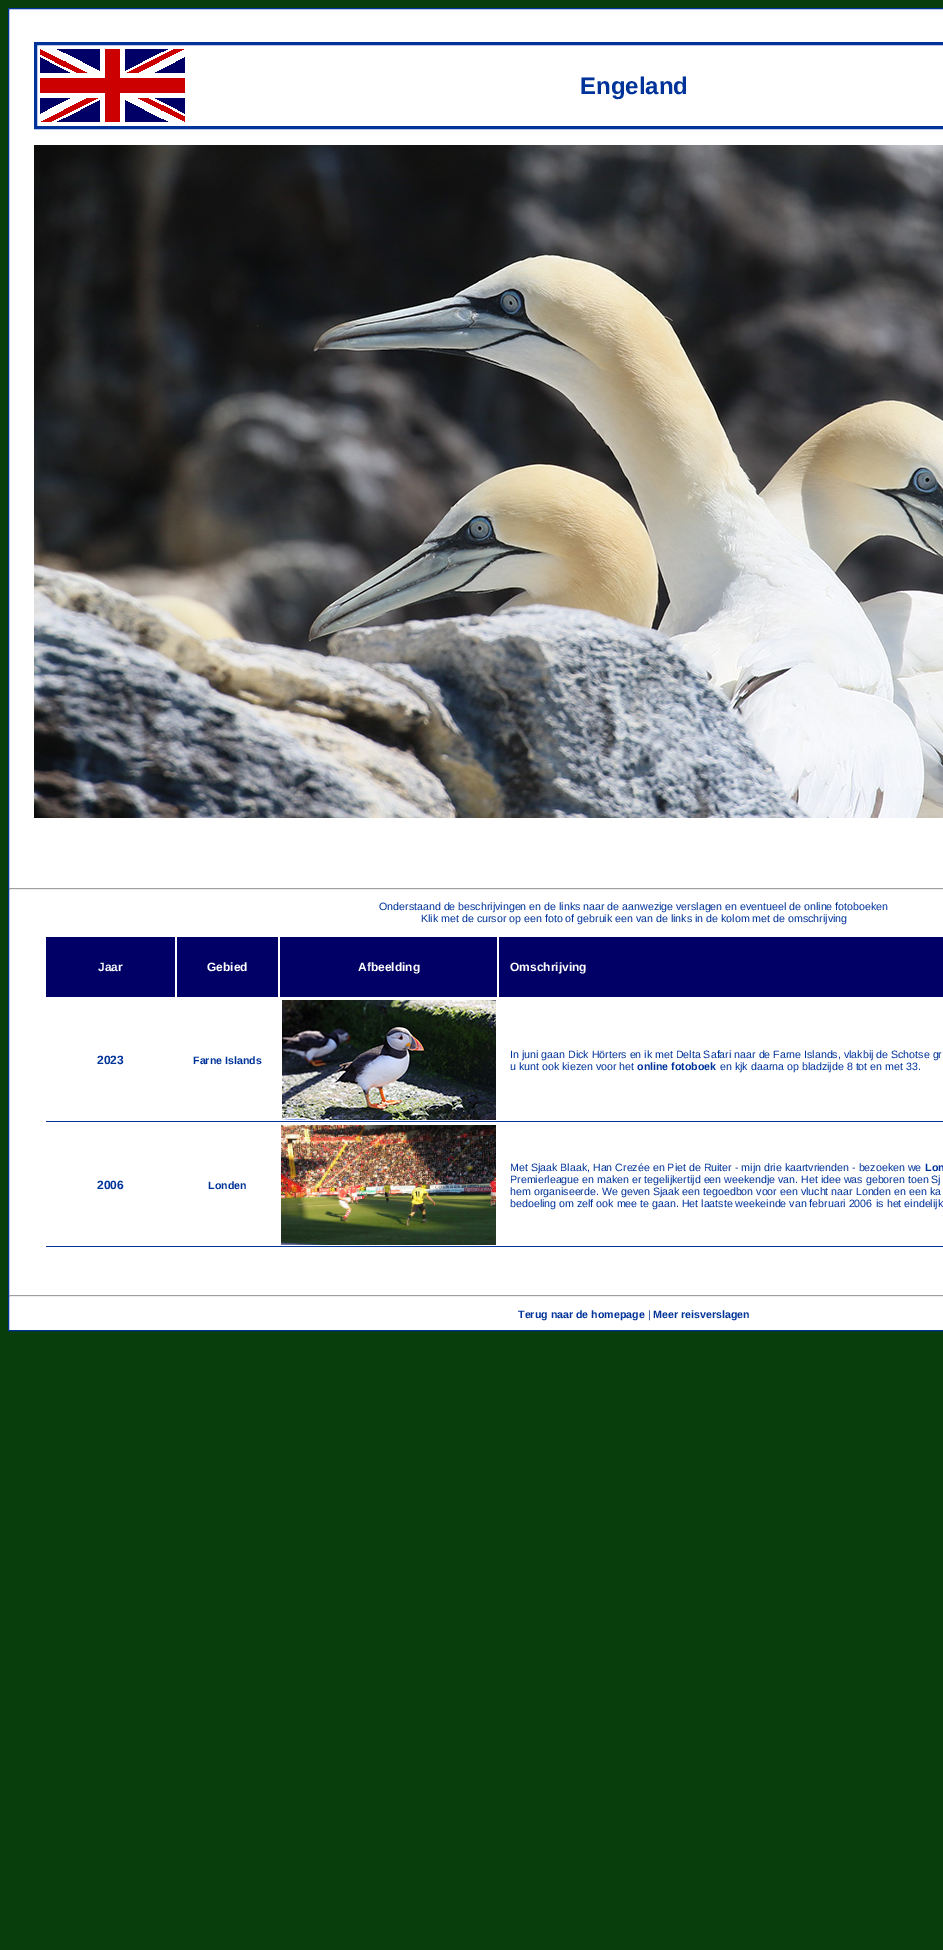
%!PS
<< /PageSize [943 1950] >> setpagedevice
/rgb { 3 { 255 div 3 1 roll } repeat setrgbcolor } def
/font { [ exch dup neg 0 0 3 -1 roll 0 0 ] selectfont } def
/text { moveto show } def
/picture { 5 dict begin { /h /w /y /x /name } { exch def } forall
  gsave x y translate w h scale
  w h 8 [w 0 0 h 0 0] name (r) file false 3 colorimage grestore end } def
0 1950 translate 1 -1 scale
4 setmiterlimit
8 61 12 rgb
0 0 943 1950 rectfill
255 255 255 rgb
8.5 8.5 moveto 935 0 rlineto 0 1322 rlineto -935 0 rlineto closepath gsave fill grestore
0 51 153 rgb
stroke
3 setlinewidth
35.5 43.5 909 84 rectstroke
(img_01.rgb) 40 49 145 73 picture
(img_02.rgb) 34 145 909 673 picture
159 159 159 rgb
9 888 934 1 rectfill
238 238 238 rgb
9 889 934 1 rectfill
159 159 159 rgb
9 888 1 2 rectfill
0 0 102 rgb
46 937 129 60 rectfill
177 937 101 60 rectfill
280 937 217 60 rectfill
499 937 444 60 rectfill
0 51 153 rgb
46 1121 897 1 rectfill
(img_03.rgb) 282 1000 214 120 picture
46 1246 897 1 rectfill
(img_04.rgb) 281 1125 215 120 picture
159 159 159 rgb
9 1295 934 1 rectfill
238 238 238 rgb
9 1296 934 1 rectfill
159 159 159 rgb
9 1295 1 2 rectfill
/LiberationSans-Bold 24 font
0 51 153 rgb
(Engeland) 580 94 text
/LiberationSans-Regular 10.65 font
(Onderstaand de beschrijvingen en de links naar de aanwezige verslagen en eventueel de online fotoboeken) 379 910 text
(Klik met de cursor op een foto of gebruik een van de links in de kolom met de omschrijving) 421 922 text
/LiberationSans-Bold 12 font
255 255 255 rgb
(Jaar) 98 971 text
(Gebied) 207 971 text
(Afbeelding) 358 971 text
(Omschrijving) 510 971 text
0 51 153 rgb
(2023) 97 1064 text
/LiberationSans-Bold 10.65 font
(Farne Islands) 193 1064 text
/LiberationSans-Regular 10.65 font
(In juni gaan Dick Hörters en ik met Delta Safari naar de Farne Islands, vlakbij de Schotse gr) 510 1058 text
(u kunt ook kiezen voor het) 510 1070 text
/LiberationSans-Bold 10.65 font
(online fotoboek) 637 1070 text
/LiberationSans-Regular 10.65 font
(en kjk daarna op bladzijde 8 tot en met 33.) 720 1070 text
/LiberationSans-Bold 12 font
(2006) 97 1189 text
/LiberationSans-Bold 10.65 font
(Londen) 208 1189 text
/LiberationSans-Regular 10.65 font
(Met Sjaak Blaak, Han Crezée en Piet de Ruiter - mijn drie kaartvrienden - bezoeken we) 510 1171 text
/LiberationSans-Bold 10.65 font
(Lon) 925 1171 text
/LiberationSans-Regular 10.65 font
(Premierleague en maken er tegelijkertijd een weekendje van. Het idee was geboren toen Sj) 510 1183 text
(hem organiseerde. We geven Sjaak een tegoedbon voor een vlucht naar Londen en een ka) 510 1195 text
(bedoeling om zelf ook mee te gaan. Het laatste weekeinde van februari 2006) 510 1207 text
(is het eindelijk) 876 1207 text
/LiberationSans-Bold 10.65 font
(Terug naar de homepage) 518 1318 text
/LiberationSans-Regular 10.65 font
(|) 648 1318 text
/LiberationSans-Bold 10.65 font
(Meer reisverslagen) 653 1318 text
showpage
